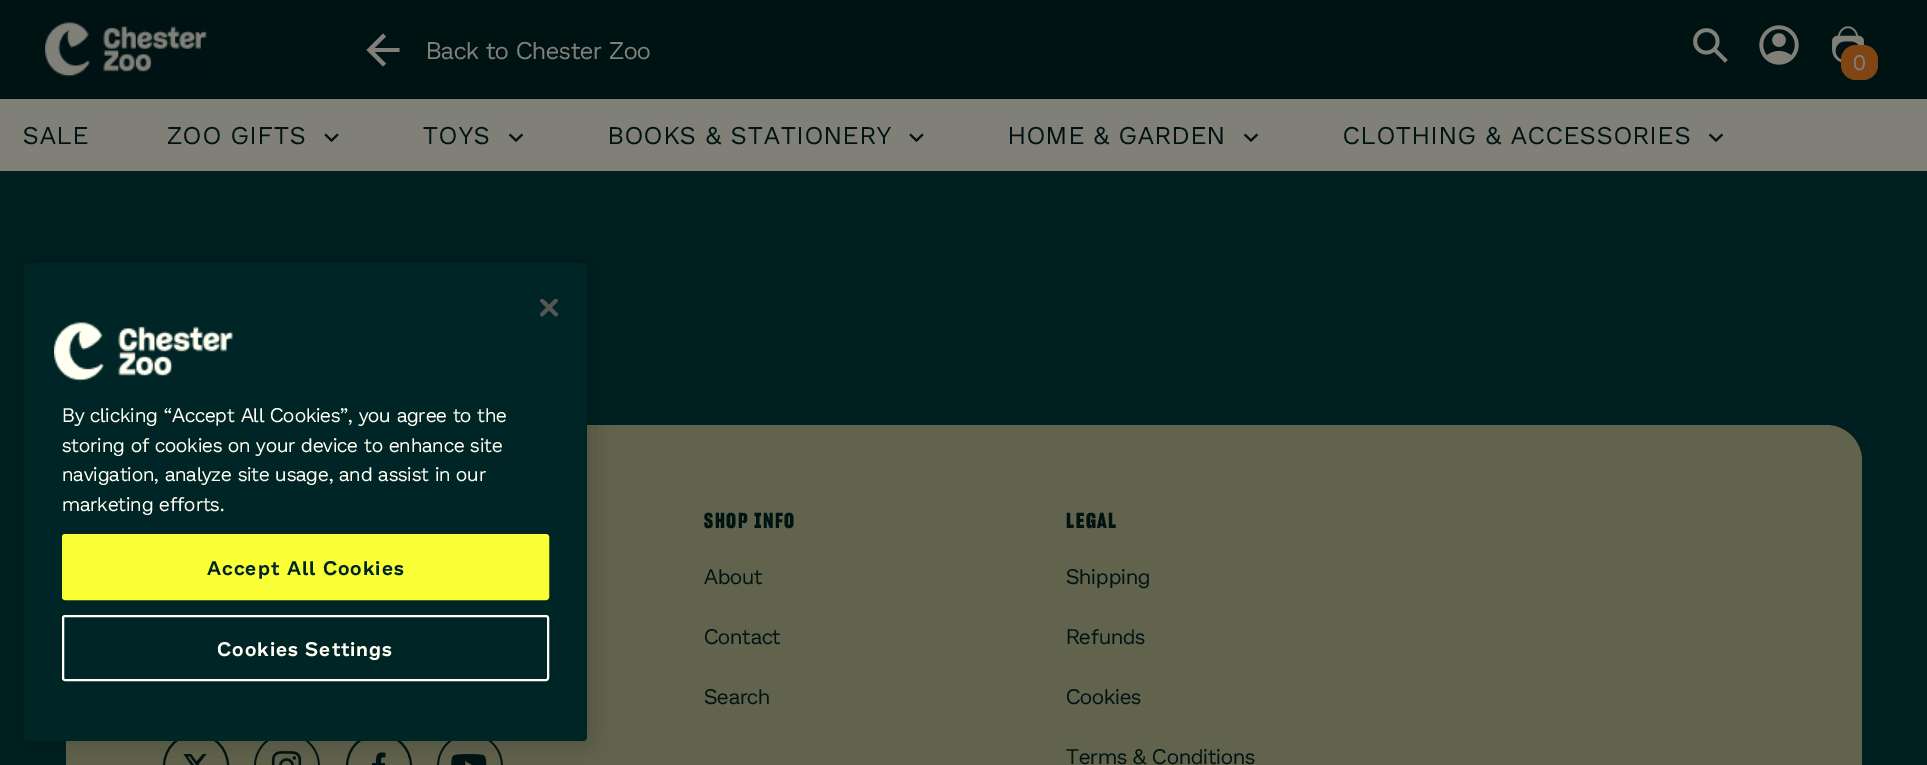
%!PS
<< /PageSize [1927 765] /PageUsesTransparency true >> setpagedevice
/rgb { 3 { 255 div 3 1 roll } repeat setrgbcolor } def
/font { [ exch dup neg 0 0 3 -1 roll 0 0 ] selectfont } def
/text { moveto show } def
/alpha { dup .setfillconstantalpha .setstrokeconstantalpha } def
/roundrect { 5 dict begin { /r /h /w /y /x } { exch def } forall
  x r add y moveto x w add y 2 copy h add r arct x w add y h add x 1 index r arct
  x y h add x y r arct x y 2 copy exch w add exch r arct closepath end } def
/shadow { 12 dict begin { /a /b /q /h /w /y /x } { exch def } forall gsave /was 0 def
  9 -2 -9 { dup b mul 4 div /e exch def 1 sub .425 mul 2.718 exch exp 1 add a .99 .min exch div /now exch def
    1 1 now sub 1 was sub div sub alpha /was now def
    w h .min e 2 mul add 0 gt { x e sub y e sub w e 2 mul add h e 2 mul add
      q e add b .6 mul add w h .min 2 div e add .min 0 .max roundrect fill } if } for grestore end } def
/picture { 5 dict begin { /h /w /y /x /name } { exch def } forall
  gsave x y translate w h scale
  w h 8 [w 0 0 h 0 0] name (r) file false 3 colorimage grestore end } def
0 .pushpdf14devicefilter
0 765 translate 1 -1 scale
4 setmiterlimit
0 31 32 rgb
0 0 1927 765 rectfill
0 19 19 rgb
0 0 1927 99 rectfill
(img_01.rgb) 45 22 162 55 picture
128 128 121 rgb
399.5 48 moveto -25 0 rlineto 11.5 -11.5 rlineto -3 -3 rlineto -16.5 16.5 rlineto 16.5 16.5 rlineto 3 -3 rlineto -11.5 -11.5 rlineto 25 0 rlineto closepath fill
(img_02.rgb) 1693 28 35 35 picture
(img_03.rgb) 1759 25 40 40 picture
(img_04.rgb) 1832 26 32 37 picture
128 69 21 rgb
1841 45 37 35 15 roundrect fill
128 128 121 rgb
0 99 1927 72 rectfill
(img_05.rgb) 324 133 15 10 picture
(img_06.rgb) 508 133 16 9 picture
(img_05.rgb) 909 133 15 10 picture
(img_06.rgb) 1243 133 16 9 picture
(img_06.rgb) 1708 133 16 9 picture
97 99 76 rgb
66 425 1796 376 36 roundrect fill
0 19 19 rgb
2 setlinewidth
164 734 64 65 32 roundrect stroke
203 754 moveto 3.5 0 rlineto -8 10 rlineto 9.5 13.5 rlineto -7.5 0 rlineto -6 -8 rlineto -7 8 rlineto -3.5 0 rlineto 8.5 -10.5 rlineto -9 -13 rlineto 7.5 0 rlineto 5.5 7.5 rlineto closepath 201.5 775 moveto 2 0 rlineto -13.5 -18.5 rlineto -2.5 0 rlineto closepath eofill
(img_09.rgb) 254 741 66 24 picture
347 734 64 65 32 roundrect stroke
384.5 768 moveto 0.5 -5 rlineto -4 0 rlineto 0 -4.5 -1 -6 4.5 -6 rcurveto 0 -4 rlineto -9 -2 -9.5 3 -9.5 10 rcurveto -4 0 rlineto 0 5 rlineto 4 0 rlineto 0 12.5 rlineto 5 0 rlineto 0 -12.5 rlineto closepath eofill
(img_10.rgb) 437 741 66 24 picture
0 0 0 rgb
24 263 563 478 4 13.5 0.2 shadow
0 37 38 rgb
24 263 563 478 4 roundrect fill
(img_07.rgb) 540 299 18 18 picture
(img_08.rgb) 54 322 179 60 picture
251 255 54 rgb
63 535 485 64 2 roundrect gsave fill grestore
stroke
255 255 242 rgb
63 616 485 64 2 roundrect stroke
/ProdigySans-Regular 24 font
128 128 121 rgb
(Back to Chester Zoo) 426 59 text
/ProdigySans-Regular 21 font
128 128 128 rgb
(0) 1853 70 text
/ProdigySans-Regular 24 font
0 19 19 rgb
23 144 moveto 1.5 0 (SALE) ashow
167 144 moveto 1.5 0 (ZOO GIFTS) ashow
423 144 moveto 1.5 0 (TOYS) ashow
608 144 moveto 1.5 0 (BOOKS & STATIONERY) ashow
1008 144 moveto 1.5 0 (HOME & GARDEN) ashow
1343 144 moveto 1.5 0 (CLOTHING & ACCESSORIES) ashow
/ProdigySans-Regular 19.7 font
255 255 242 rgb
(By clicking “Accept All Cookies”, you agree to the) 62 422 text
(storing of cookies on your device to enhance site) 62 452 text
(navigation, analyze site usage, and assist in our) 62 481 text
(marketing efforts.) 62 511 text
/ProdigySans-SemiBold 19.7 font
0 37 38 rgb
207 575 moveto 1 0 (Accept All Cookies) ashow
255 255 242 rgb
217 656 moveto 1 0 (Cookies Settings) ashow
/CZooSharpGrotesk-Bold 21 font
0 19 19 rgb
704 528 moveto 1.5 0 (SHOP INFO) ashow
/ProdigySans-Regular 21 font
(About) 704 584 text
(Contact) 704 644 text
(Search) 704 704 text
/CZooSharpGrotesk-Bold 21 font
1066 528 moveto 1.5 0 (LEGAL) ashow
/ProdigySans-Regular 21 font
(Shipping) 1066 584 text
(Refunds) 1066 644 text
(Cookies) 1066 704 text
(Terms & Conditions) 1066 764 text
.poppdf14devicefilter showpage
